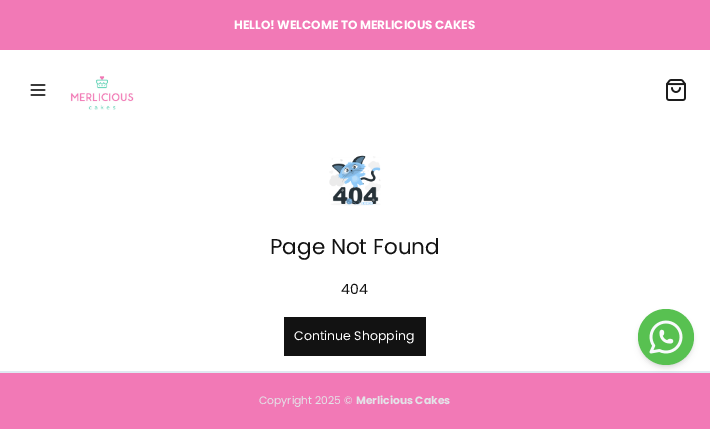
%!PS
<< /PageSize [710 429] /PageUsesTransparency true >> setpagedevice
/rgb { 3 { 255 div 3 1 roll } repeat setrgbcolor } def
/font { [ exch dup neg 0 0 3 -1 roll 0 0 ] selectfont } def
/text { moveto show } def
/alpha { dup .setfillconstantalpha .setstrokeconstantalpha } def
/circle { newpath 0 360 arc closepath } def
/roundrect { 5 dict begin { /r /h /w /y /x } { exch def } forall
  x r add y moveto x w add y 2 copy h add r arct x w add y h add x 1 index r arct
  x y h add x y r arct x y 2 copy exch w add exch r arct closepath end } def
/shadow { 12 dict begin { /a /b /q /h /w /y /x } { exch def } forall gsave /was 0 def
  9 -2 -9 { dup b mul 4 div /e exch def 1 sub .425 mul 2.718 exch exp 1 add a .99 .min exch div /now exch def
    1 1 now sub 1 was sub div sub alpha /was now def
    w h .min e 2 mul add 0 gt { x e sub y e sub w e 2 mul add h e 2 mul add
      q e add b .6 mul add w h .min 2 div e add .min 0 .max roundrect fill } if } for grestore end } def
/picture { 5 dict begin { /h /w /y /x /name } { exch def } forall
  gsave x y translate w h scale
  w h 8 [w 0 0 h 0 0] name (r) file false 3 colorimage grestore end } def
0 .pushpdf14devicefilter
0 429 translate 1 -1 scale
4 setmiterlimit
255 255 255 rgb
0 0 710 429 rectfill
242 121 182 rgb
0 0 710 50 rectfill
(img_01.rgb) 30 84 16 12 picture
(img_02.rgb) 70 76 64 34 picture
(img_03.rgb) 666 79 20 22 picture
(img_04.rgb) 329 155 52 51 picture
18 18 18 rgb
284 317 142 39 rectfill
242 121 182 rgb
0 373 710 56 rectfill
224 232 242 rgb
0 371 710 2 rectfill
0 0 0 rgb
640 313 52 52 26 2 0.1 shadow
639 314 54 54 27 3 0.1 shadow
88 193 81 rgb
666 337 28 circle fill
(img_05.rgb) 649 320 34 34 picture
/Poppins-Bold 12 font
255 255 255 rgb
(HELLO! WELCOME TO MERLICIOUS CAKES) 234 29 text
/Poppins-Regular 21.5 font
18 18 18 rgb
(Page Not Found) 270 254 text
/Poppins-Regular 14 font
(404) 341 294 text
/Poppins-Regular 12.5 font
255 255 255 rgb
(Continue Shopping) 294 340 text
/Poppins-Regular 10.75 font
227 227 232 rgb
(Copyright 2025 ©) 259 404 text
/Poppins-Bold 10.75 font
(Merlicious Cakes) 356 404 text
.poppdf14devicefilter showpage
